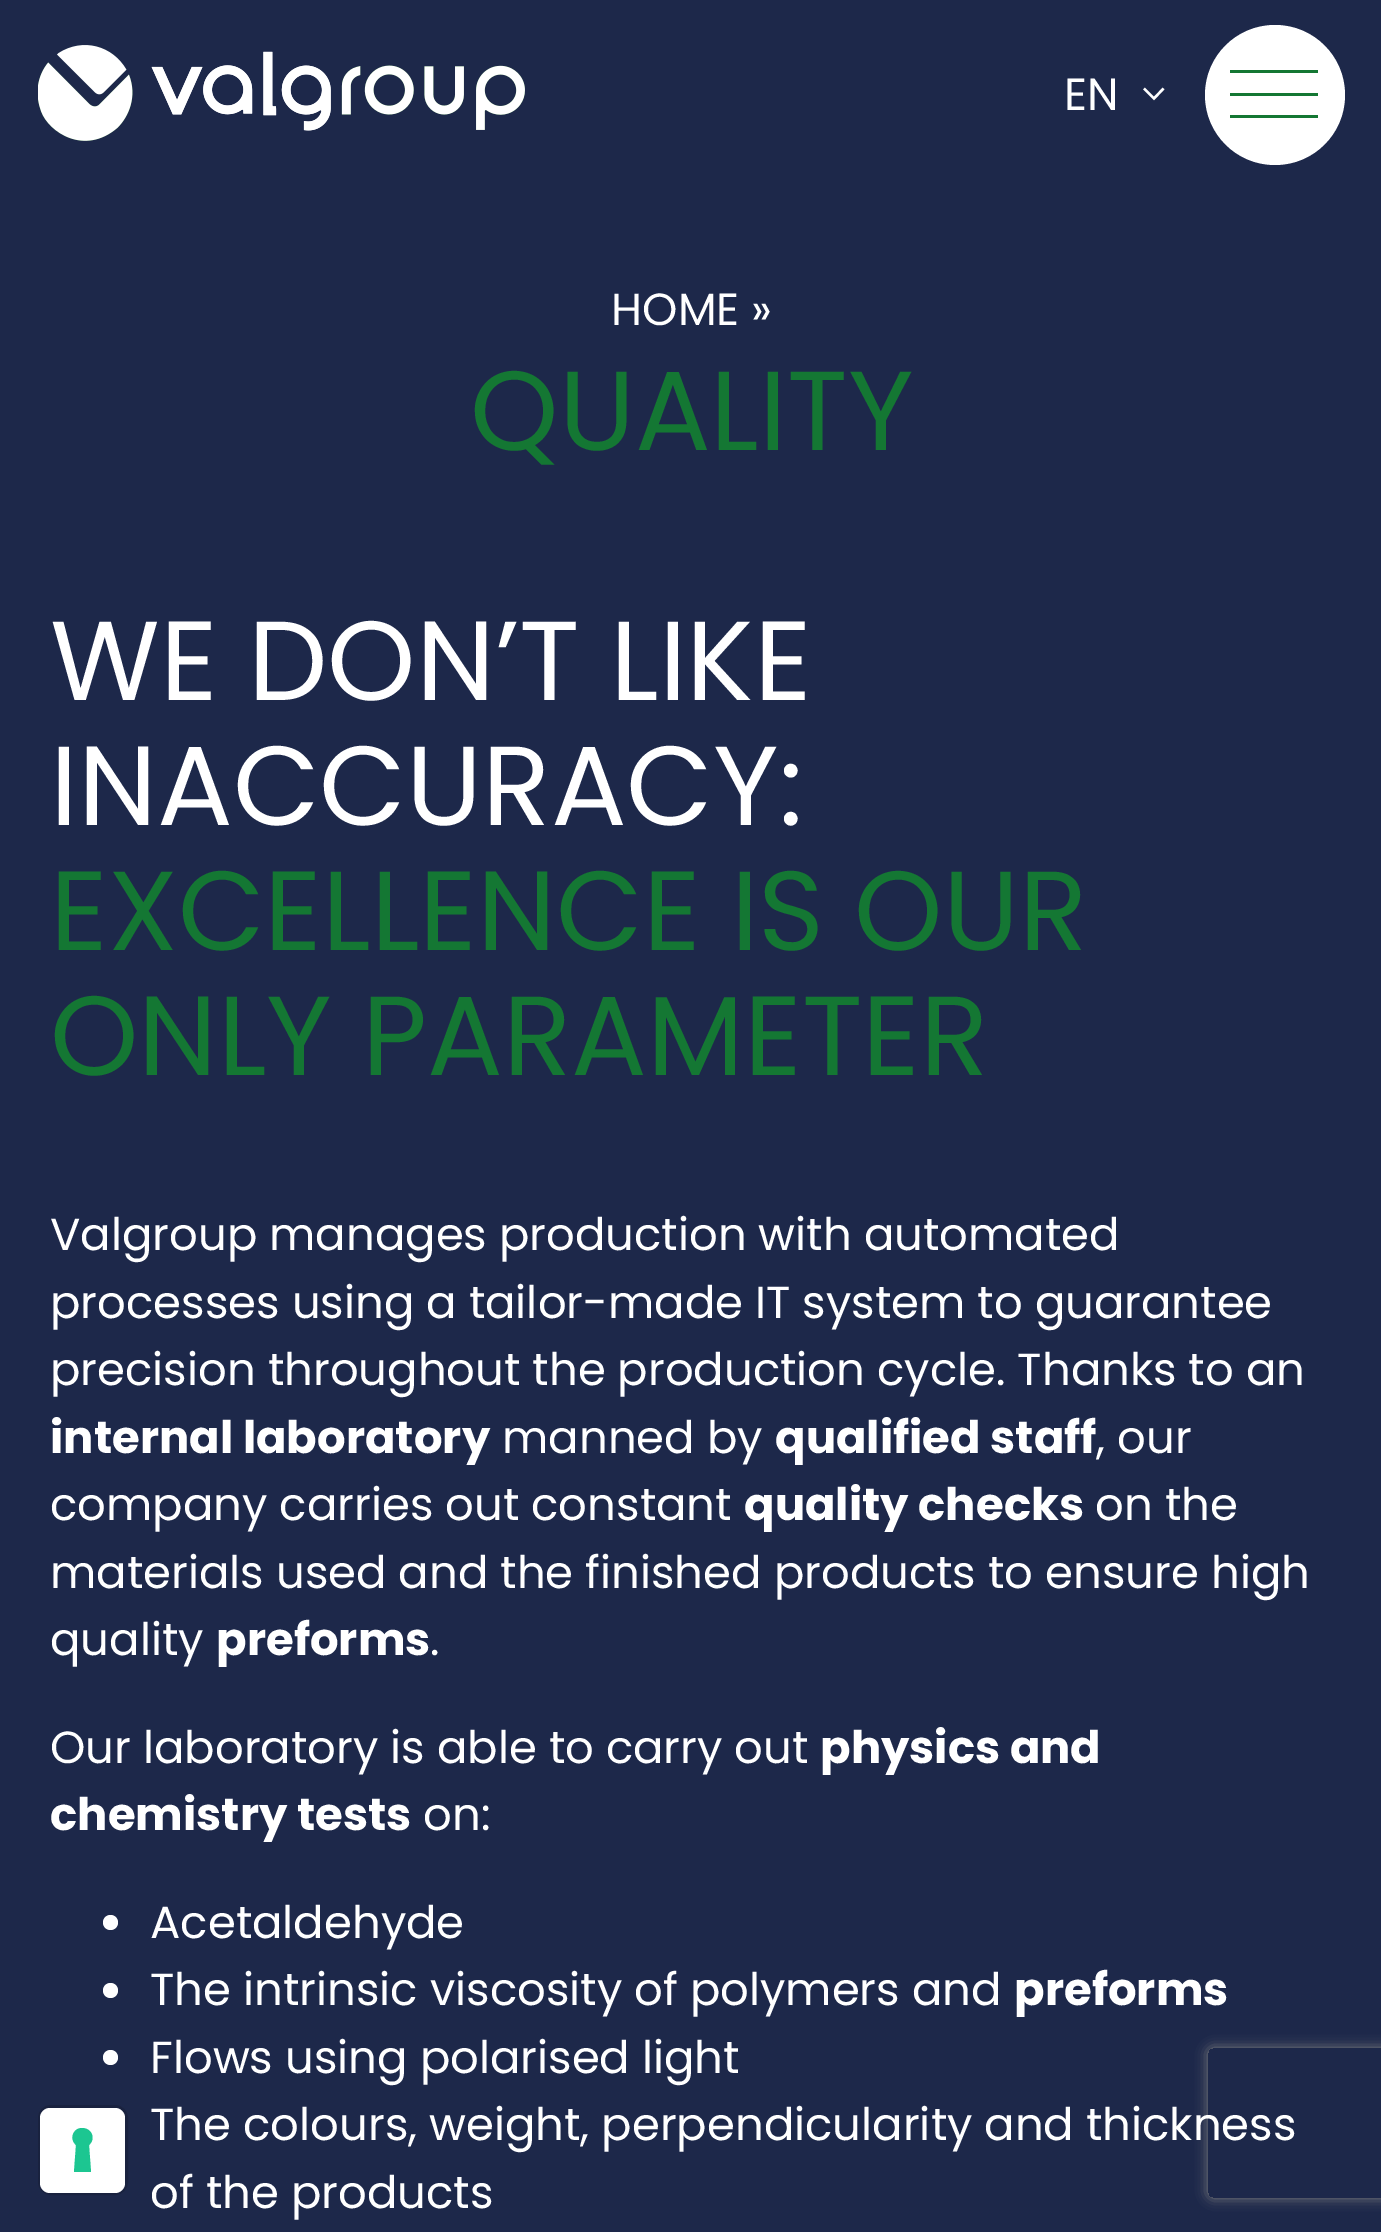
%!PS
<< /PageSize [1381 2232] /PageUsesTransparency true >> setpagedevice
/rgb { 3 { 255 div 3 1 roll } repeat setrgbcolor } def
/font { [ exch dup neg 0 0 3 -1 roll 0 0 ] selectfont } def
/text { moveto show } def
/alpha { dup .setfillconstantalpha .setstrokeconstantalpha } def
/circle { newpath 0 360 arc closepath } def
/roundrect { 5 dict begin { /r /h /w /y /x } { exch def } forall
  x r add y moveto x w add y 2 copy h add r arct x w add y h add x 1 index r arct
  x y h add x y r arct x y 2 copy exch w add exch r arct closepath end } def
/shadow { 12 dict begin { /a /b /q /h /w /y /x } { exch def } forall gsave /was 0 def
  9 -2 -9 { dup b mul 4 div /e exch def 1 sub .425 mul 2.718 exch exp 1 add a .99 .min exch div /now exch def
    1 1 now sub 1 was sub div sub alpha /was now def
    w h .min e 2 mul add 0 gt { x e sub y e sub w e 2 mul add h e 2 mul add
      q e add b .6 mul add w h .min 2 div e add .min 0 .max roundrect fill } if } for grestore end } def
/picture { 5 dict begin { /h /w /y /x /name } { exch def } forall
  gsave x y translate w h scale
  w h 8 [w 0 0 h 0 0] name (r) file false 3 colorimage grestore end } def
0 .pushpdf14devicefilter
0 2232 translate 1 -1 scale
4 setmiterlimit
29 40 74 rgb
0 0 1381 2232 rectfill
(img_01.rgb) 38 45 487 96 picture
255 255 255 rgb
2.4 setlinewidth
1144 88.5 moveto 10 10 rlineto 9.5 -10 rlineto stroke
1275 95 70 circle fill
20 119 51 rgb
1230 70 88 3 rectfill
1230 93 88 3 rectfill
1230 115 88 3 rectfill
255 255 255 rgb
110.5 1922.5 7.5 circle fill
110.5 1990.5 7.5 circle fill
110.5 2057.5 7.5 circle fill
25 34 63 rgb
3 setlinewidth
39.5 2106.5 87 87 11.5 roundrect stroke
255 255 255 rgb
40 2108 85 85 10 roundrect fill
28 198 145 rgb
82 2128 moveto 10 0 14 11 7 17 rcurveto 2 27 rlineto -17 0 rlineto 2 -27 rlineto -7 -6 -3 -17 6 -17 rcurveto closepath eofill
gsave
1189 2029 moveto 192 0 rlineto 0 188 rlineto -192 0 rlineto closepath 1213 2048 moveto 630 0 rlineto 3 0 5 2 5 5 rcurveto 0 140 rlineto 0 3 -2 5 -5 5 rcurveto -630 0 rlineto -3 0 -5 -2 -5 -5 rcurveto 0 -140 rlineto 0 -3 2 -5 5 -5 rcurveto closepath eoclip newpath
128 128 128 rgb
1208 2048 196 150 5 6 1 shadow
grestore
/Poppins-Regular 45 font
255 255 255 rgb
(EN) 1064 110 text
(HOME ») 611 325 text
/Poppins-Regular 112.5 font
20 119 51 rgb
(QUALITY) 470 450 text
255 255 255 rgb
(WE DON’T LIKE) 50 700 text
(INACCURACY:) 50 825 text
20 119 51 rgb
(EXCELLENCE IS OUR) 50 950 text
(ONLY PARAMETER) 50 1075 text
/Poppins-Regular 45 font
255 255 255 rgb
(Valgroup manages production with automated) 50 1250 text
(processes using a tailor-made IT system to guarantee) 50 1318 text
(precision throughout the production cycle. Thanks to an) 50 1385 text
/Poppins-Bold 45 font
(internal laboratory) 50 1453 text
/Poppins-Regular 45 font
(manned by) 502 1453 text
/Poppins-Bold 45 font
(qualified staff) 775 1453 text
/Poppins-Regular 45 font
(, our) 1096 1453 text
(company carries out constant) 50 1520 text
/Poppins-Bold 45 font
(quality checks) 744 1520 text
/Poppins-Regular 45 font
(on the) 1095 1520 text
(materials used and the finished products to ensure high) 50 1588 text
(quality) 50 1655 text
/Poppins-Bold 45 font
(preforms) 216 1655 text
/Poppins-Regular 45 font
(.) 430 1655 text
(Our laboratory is able to carry out) 50 1763 text
/Poppins-Bold 45 font
(physics and) 820 1763 text
(chemistry tests) 50 1830 text
/Poppins-Regular 45 font
(on:) 423 1830 text
(Acetaldehyde) 150 1938 text
(The intrinsic viscosity of polymers and) 150 2005 text
/Poppins-Bold 45 font
(preforms) 1014 2005 text
/Poppins-Regular 45 font
(Flows using polarised light) 150 2073 text
(The colours, weight, perpendicularity and thickness) 150 2140 text
(of the products) 150 2208 text
.poppdf14devicefilter showpage
